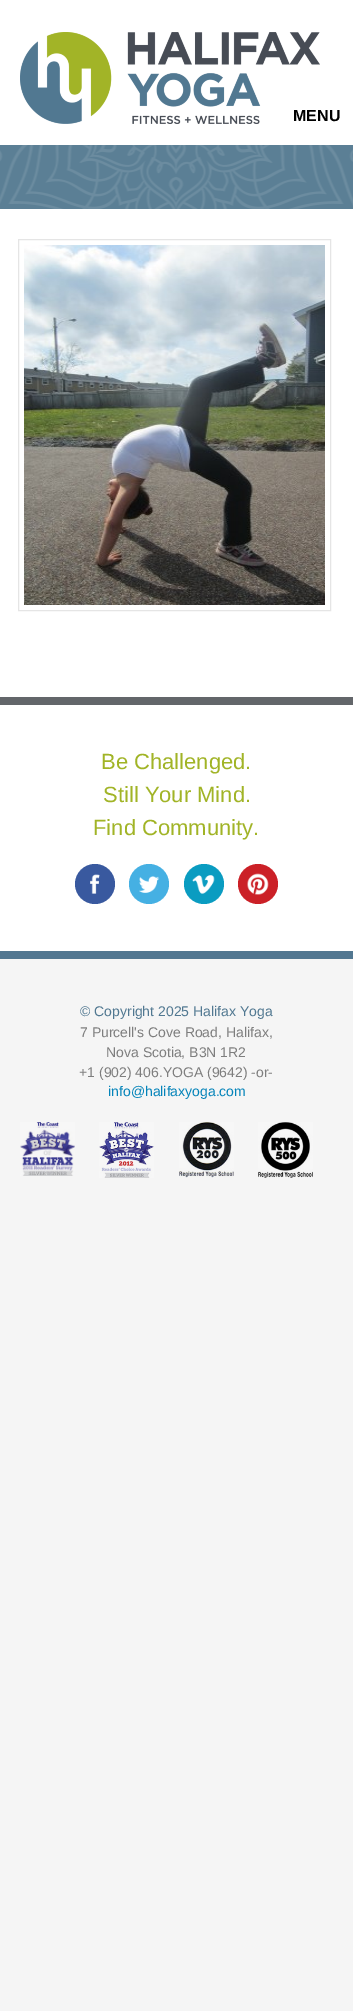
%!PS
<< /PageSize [353 2011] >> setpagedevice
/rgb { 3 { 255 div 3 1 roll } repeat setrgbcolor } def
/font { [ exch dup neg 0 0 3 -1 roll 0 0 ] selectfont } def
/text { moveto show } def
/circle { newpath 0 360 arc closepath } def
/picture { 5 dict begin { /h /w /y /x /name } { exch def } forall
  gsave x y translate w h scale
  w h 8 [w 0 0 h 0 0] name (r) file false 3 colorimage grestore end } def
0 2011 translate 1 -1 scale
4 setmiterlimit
245 245 245 rgb
0 0 353 2011 rectfill
255 255 255 rgb
0 0 353 145 rectfill
(img_01.rgb) 20 32 300 92 picture
91 127 149 rgb
0 145 353 64 rectfill
(img_02.rgb) 0 145 353 64 picture
255 255 255 rgb
0 209 353 488 rectfill
229 229 229 rgb
18.5 239.5 312 371 rectstroke
(img_03.rgb) 24 245 301 360 picture
255 255 255 rgb
0 705 353 246 rectfill
99 102 106 rgb
0 697 353 8 rectfill
57 89 159 rgb
95 884 20 circle fill
(img_04.rgb) 90 874 10 20 picture
69 176 227 rgb
149 884 20 circle fill
(img_05.rgb) 139 876 21 17 picture
10 156 193 rgb
204 884 20 circle fill
(img_06.rgb) 192 875 23 19 picture
203 32 39 rgb
258 884 20 circle fill
(img_07.rgb) 247 873 22 22 picture
82 119 145 rgb
0 951 353 8 rectfill
(img_08.rgb) 20 1122 55 54 picture
(img_09.rgb) 99 1122 55 56 picture
(img_10.rgb) 179 1122 55 56 picture
(img_11.rgb) 258 1122 55 56 picture
/LiberationSans-Bold 16 font
0 0 0 rgb
(MENU) 293 121 text
/LiberationSans-Regular 22 font
161 180 38 rgb
(Be Challenged.) 101 769 text
(Still Your Mind.) 103 802 text
(Find Community.) 93 835 text
/LiberationSans-Regular 14 font
81 120 145 rgb
(© Copyright 2025 Halifax Yoga) 80 1016 text
126 126 126 rgb
(7 Purcell's Cove Road, Halifax,) 80 1037 text
(Nova Scotia, B3N 1R2) 106 1057 text
(+1 \(902\) 406.YOGA \(9642\) -or-) 79 1077 text
4 132 186 rgb
(info@halifaxyoga.com) 108 1096 text
showpage
